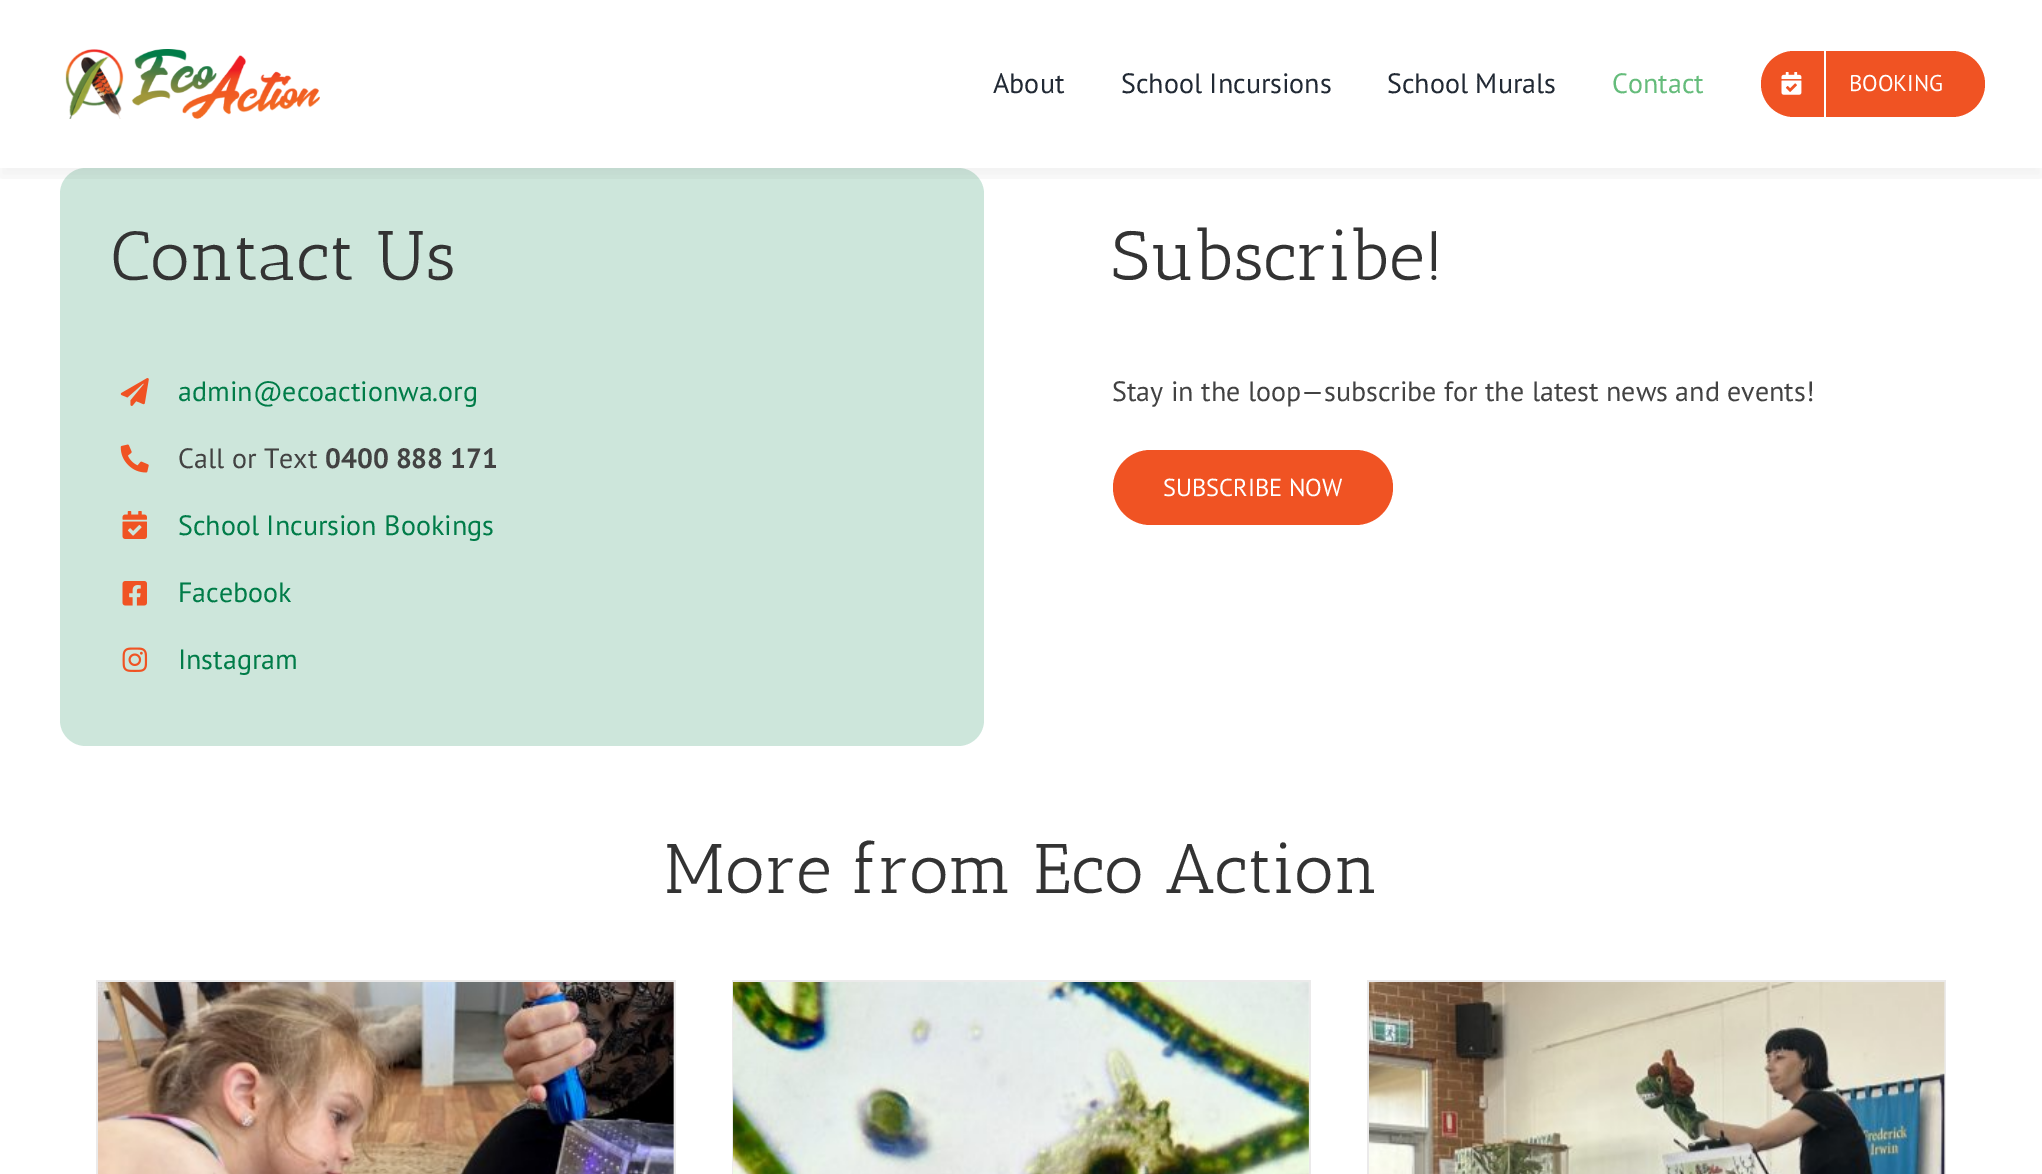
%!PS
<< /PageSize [2042 1174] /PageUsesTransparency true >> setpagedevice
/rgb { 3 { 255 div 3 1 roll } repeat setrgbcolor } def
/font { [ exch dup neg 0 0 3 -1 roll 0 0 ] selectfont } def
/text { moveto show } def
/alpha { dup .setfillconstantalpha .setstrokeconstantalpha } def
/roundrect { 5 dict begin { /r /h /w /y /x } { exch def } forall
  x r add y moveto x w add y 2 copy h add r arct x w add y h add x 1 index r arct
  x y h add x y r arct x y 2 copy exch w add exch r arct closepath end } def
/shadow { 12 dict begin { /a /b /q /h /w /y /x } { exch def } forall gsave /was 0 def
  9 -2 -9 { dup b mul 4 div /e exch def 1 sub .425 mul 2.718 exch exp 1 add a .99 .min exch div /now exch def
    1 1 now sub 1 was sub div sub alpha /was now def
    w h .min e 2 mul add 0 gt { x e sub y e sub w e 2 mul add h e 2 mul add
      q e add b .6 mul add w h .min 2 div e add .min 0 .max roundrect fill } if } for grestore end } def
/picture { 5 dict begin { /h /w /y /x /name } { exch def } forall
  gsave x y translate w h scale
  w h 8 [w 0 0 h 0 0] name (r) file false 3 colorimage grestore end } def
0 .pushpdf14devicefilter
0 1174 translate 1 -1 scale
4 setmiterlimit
255 255 255 rgb
0 0 2042 1174 rectfill
205 230 219 rgb
60 168 924 578 26 roundrect fill
gsave
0 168 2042 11 rectclip
0 0 0 rgb
0 9 2042 168 0 9 0.05 shadow
grestore
(img_01.rgb) 65 49 255 70 picture
240 83 35 rgb
1761 51 224 66 33 roundrect fill
255 255 255 rgb
1824 51 2 66 rectfill
(img_02.rgb) 1781 72 21 23 picture
(img_03.rgb) 120 378 29 28 picture
(img_04.rgb) 120 444 29 29 picture
(img_05.rgb) 122 511 25 28 picture
(img_06.rgb) 122 581 25 25 picture
(img_07.rgb) 122 647 26 25 picture
240 83 35 rgb
1113 450 280 75 37.5 roundrect fill
235 234 234 rgb
96 980 580 2 rectfill
674 980 2 194 rectfill
96 980 2 194 rectfill
(img_08.rgb) 98 982 576 192 picture
732 980 579 2 rectfill
1309 980 2 194 rectfill
732 980 2 194 rectfill
(img_09.rgb) 733 982 576 192 picture
1367 980 579 2 rectfill
1944 980 2 194 rectfill
1367 980 2 194 rectfill
(img_10.rgb) 1369 982 576 192 picture
/PTSans-Regular 28 font
33 41 52 rgb
(About) 993 93 text
(School Incursions) 1121 93 text
(School Murals) 1387 93 text
101 188 123 rgb
(Contact) 1612 93 text
/PTSans-Regular 22.75 font
255 255 255 rgb
(BOOKING) 1849 91 text
/AnticSlab-Regular 70 font
51 51 51 rgb
(Contact Us) 111 280 text
/PTSans-Regular 28 font
0 124 72 rgb
(admin@ecoactionwa.org) 178 401 text
66 66 66 rgb
(Call or Text) 178 468 text
/PTSans-Bold 28 font
(0400 888 171) 325 468 text
/PTSans-Regular 28 font
0 124 72 rgb
(School Incursion Bookings) 178 535 text
(Facebook) 178 602 text
(Instagram) 178 669 text
/AnticSlab-Regular 70 font
51 51 51 rgb
(Subscribe!) 1112 280 text
/PTSans-Regular 28 font
66 66 66 rgb
(Stay in the loop—subscribe for the latest news and events!) 1112 401 text
/PTSans-Regular 24.5 font
255 255 255 rgb
(SUBSCRIBE NOW) 1163 496 text
/AnticSlab-Regular 70 font
51 51 51 rgb
(More from Eco Action) 664 893 text
.poppdf14devicefilter showpage
